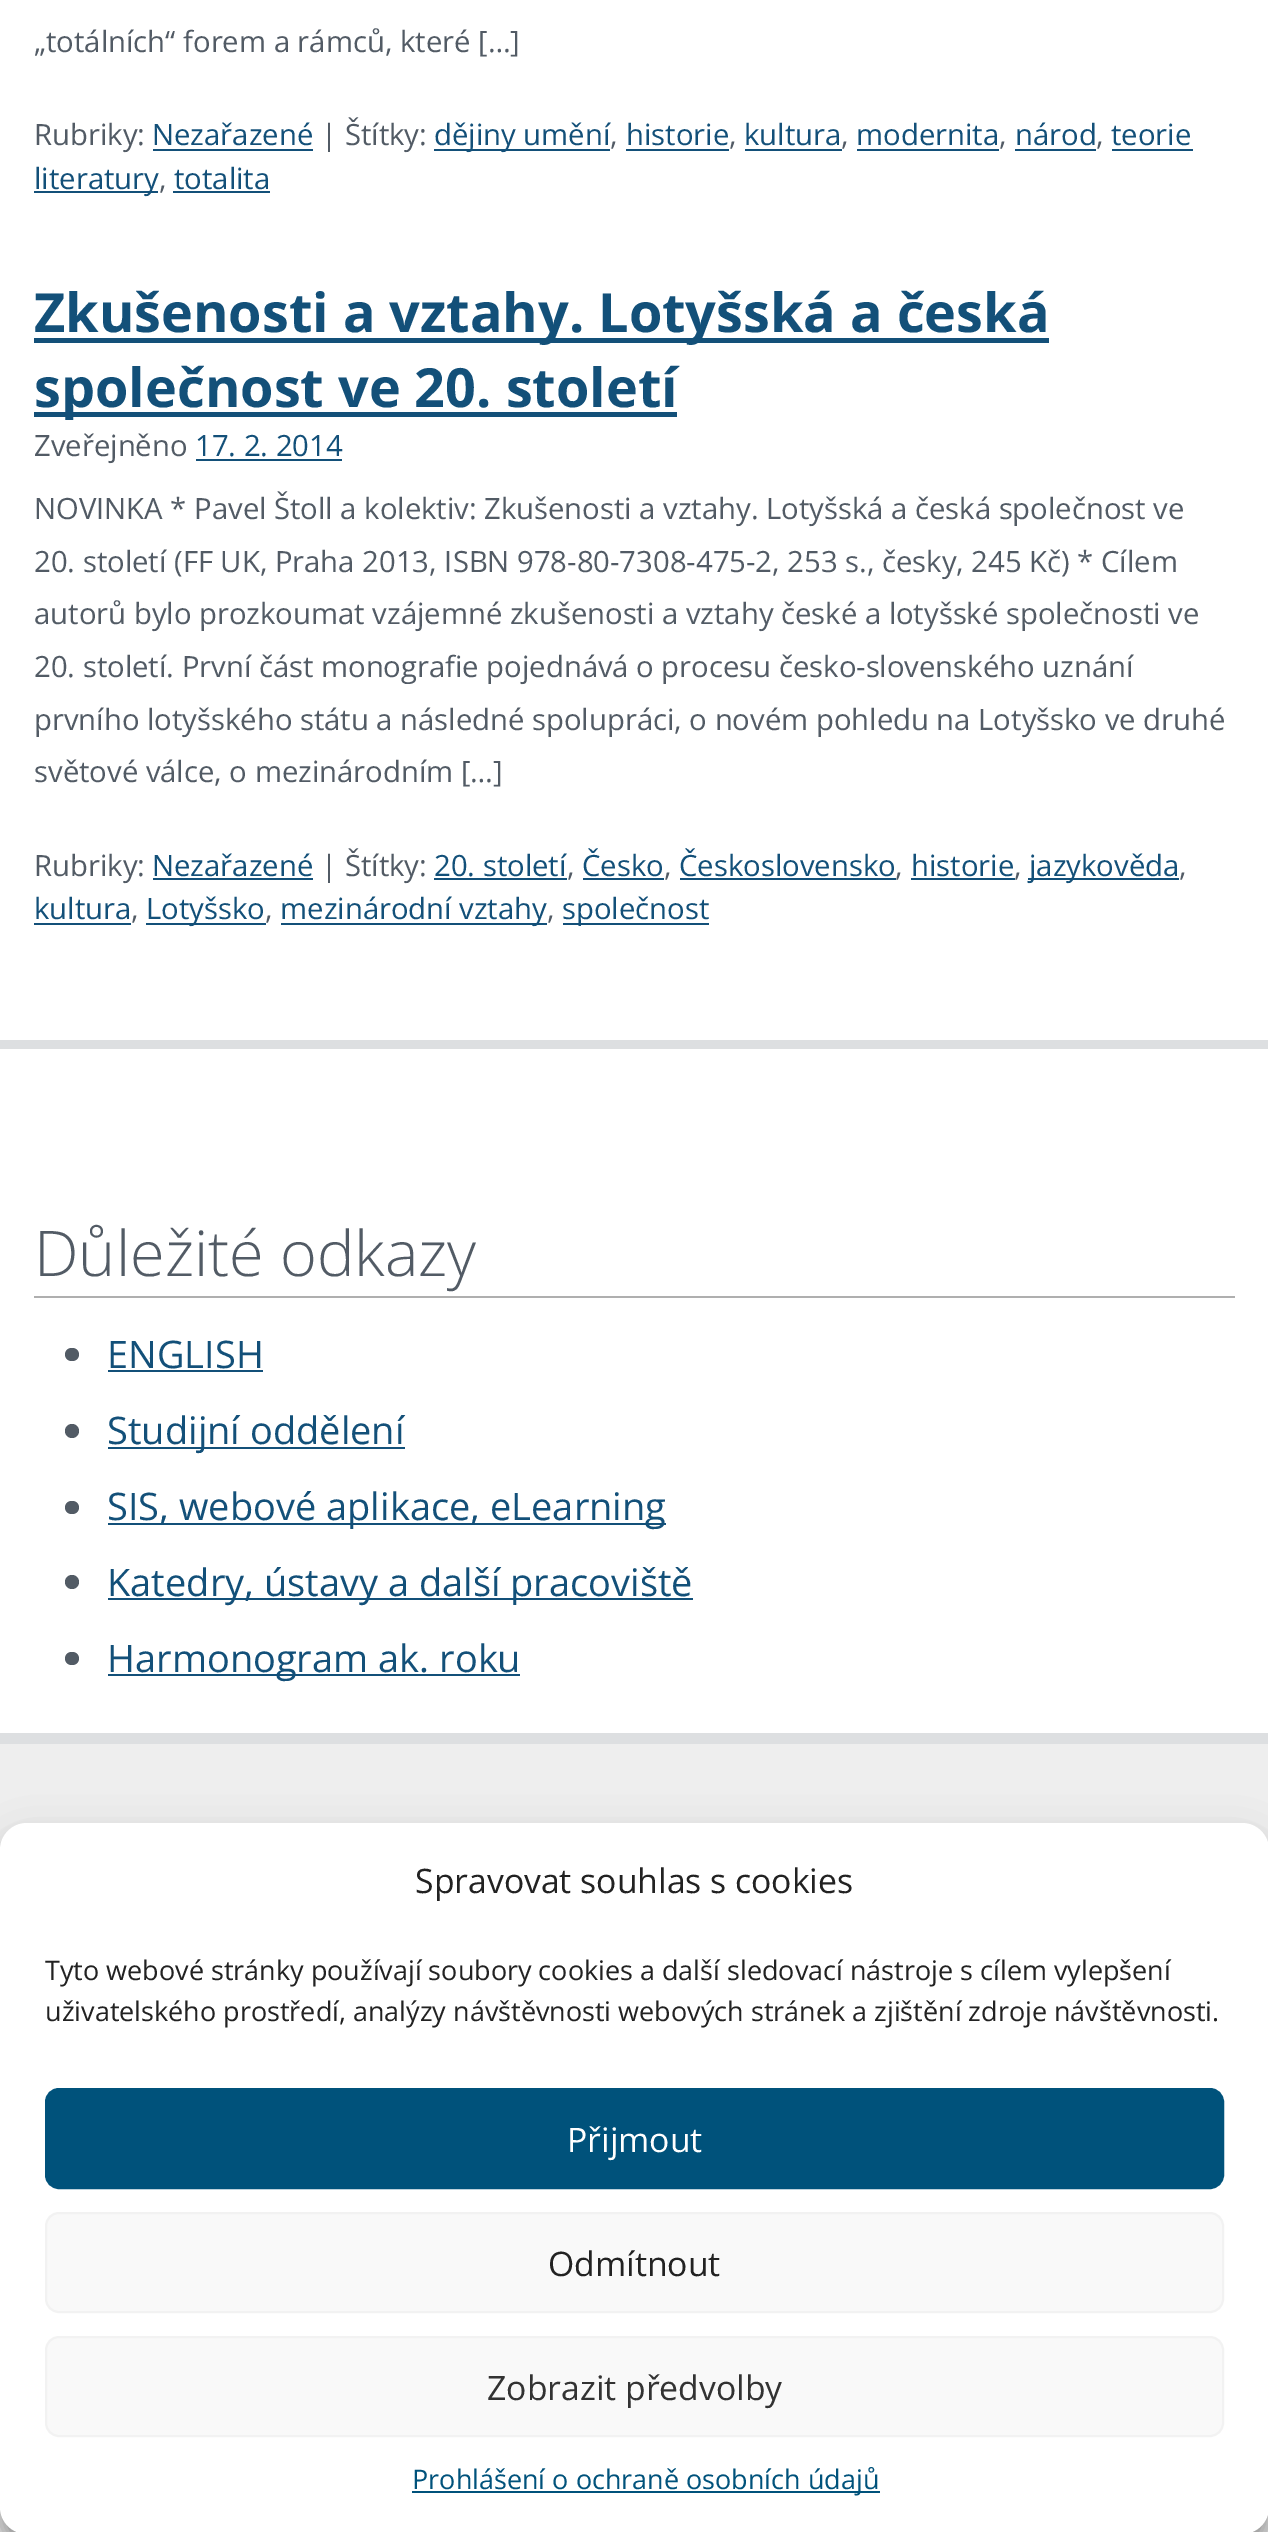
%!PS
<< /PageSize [1268 2532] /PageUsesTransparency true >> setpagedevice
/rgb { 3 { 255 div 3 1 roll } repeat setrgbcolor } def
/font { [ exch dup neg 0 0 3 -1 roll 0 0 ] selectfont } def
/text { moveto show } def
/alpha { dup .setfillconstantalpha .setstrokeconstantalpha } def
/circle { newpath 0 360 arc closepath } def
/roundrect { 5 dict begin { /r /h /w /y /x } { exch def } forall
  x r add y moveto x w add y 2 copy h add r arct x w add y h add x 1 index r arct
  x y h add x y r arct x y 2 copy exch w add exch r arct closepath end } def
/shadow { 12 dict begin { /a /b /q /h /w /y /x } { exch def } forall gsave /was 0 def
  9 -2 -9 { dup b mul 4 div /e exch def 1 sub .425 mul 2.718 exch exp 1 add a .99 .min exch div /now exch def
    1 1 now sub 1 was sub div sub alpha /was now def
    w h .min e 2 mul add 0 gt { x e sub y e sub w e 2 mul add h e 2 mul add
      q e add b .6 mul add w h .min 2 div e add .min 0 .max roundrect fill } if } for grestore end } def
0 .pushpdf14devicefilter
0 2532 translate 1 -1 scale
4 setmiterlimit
255 255 255 rgb
0 0 1268 2532 rectfill
221 223 225 rgb
0 1040 1268 9 rectfill
19 80 121 rgb
153 149 160 2 rectfill
434 149 176 2 rectfill
626 149 103 2 rectfill
745 149 97 2 rectfill
857 149 142 2 rectfill
1015 149 81 2 rectfill
1112 149 81 2 rectfill
34 191 124 2 rectfill
173 191 97 2 rectfill
34 338 1015 5 rectfill
34 412 643 5 rectfill
196 459 146 2 rectfill
153 878 160 2 rectfill
434 878 133 2 rectfill
583 878 81 2 rectfill
680 878 216 2 rectfill
911 878 104 2 rectfill
1028 878 151 2 rectfill
34 923 97 2 rectfill
146 923 120 2 rectfill
281 923 266 2 rectfill
563 923 146 2 rectfill
175 175 175 rgb
34 1296 1201 2 rectfill
82 91 101 rgb
65 1348 14 13 6.5 roundrect fill
19 80 121 rgb
108 1370 155 2 rectfill
82 91 101 rgb
72 1431 7 circle fill
19 80 121 rgb
108 1447 297 2 rectfill
82 91 101 rgb
65 1501 14 13 6.5 roundrect fill
19 80 121 rgb
108 1523 558 2 rectfill
82 91 101 rgb
72 1582 7 circle fill
19 80 121 rgb
108 1598 585 2 rectfill
82 91 101 rgb
65 1652 14 13 6.5 roundrect fill
19 80 121 rgb
108 1674 412 2 rectfill
238 238 238 rgb
0 1744 1268 788 rectfill
221 223 225 rgb
0 1733 1268 11 rectfill
0 0 0 rgb
0 1836 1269 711 27 7 0.23 shadow
0 1845 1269 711 27 22.5 0.19 shadow
255 255 255 rgb
0 1823 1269 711 27 roundrect fill
0 82 123 rgb
46 2089 1177 99 13 roundrect gsave fill grestore
2 setlinewidth
stroke
249 249 249 rgb
46 2213 1177 99 13 roundrect gsave fill grestore
242 242 242 rgb
stroke
249 249 249 rgb
46 2337 1177 99 13 roundrect gsave fill grestore
242 242 242 rgb
stroke
0 82 123 rgb
412 2491 468 2 rectfill
/OpenSans-Regular 29.25 font
82 91 101 rgb
(„totálních“ forem a rámců, které […]) 34 52 text
(Rubriky:) 34 145 text
19 80 121 rgb
(Nezařazené) 152 145 text
82 91 101 rgb
(| Štítky:) 321 145 text
19 80 121 rgb
(dějiny umění) 434 145 text
82 91 101 rgb
(,) 610 145 text
19 80 121 rgb
(historie) 626 145 text
82 91 101 rgb
(,) 729 145 text
19 80 121 rgb
(kultura) 744 145 text
82 91 101 rgb
(,) 841 145 text
19 80 121 rgb
(modernita) 856 145 text
82 91 101 rgb
(,) 999 145 text
19 80 121 rgb
(národ) 1015 145 text
82 91 101 rgb
(,) 1096 145 text
19 80 121 rgb
(teorie) 1111 145 text
(literatury) 34 189 text
82 91 101 rgb
(,) 159 189 text
19 80 121 rgb
(totalita) 174 189 text
/OpenSans-Bold 54 font
(Zkušenosti a vztahy. Lotyšská a česká) 34 332 text
(společnost ve 20. století) 34 407 text
/OpenSans-Regular 29.25 font
82 91 101 rgb
(Zveřejněno) 34 456 text
19 80 121 rgb
(17. 2. 2014) 195 456 text
82 91 101 rgb
(NOVINKA * Pavel Štoll a kolektiv: Zkušenosti a vztahy. Lotyšská a česká společnost ve) 34 519 text
(20. století \(FF UK, Praha 2013, ISBN 978-80-7308-475-2, 253 s., česky, 245 Kč\) * Cílem) 34 572 text
(autorů bylo prozkoumat vzájemné zkušenosti a vztahy české a lotyšské společnosti ve) 34 624 text
(20. století. První část monografie pojednává o procesu česko-slovenského uznání) 34 677 text
(prvního lotyšského státu a následné spolupráci, o novém pohledu na Lotyšsko ve druhé) 34 730 text
(světové válce, o mezinárodním […]) 34 782 text
(Rubriky:) 34 876 text
19 80 121 rgb
(Nezařazené) 152 876 text
82 91 101 rgb
(| Štítky:) 321 876 text
19 80 121 rgb
(20. století) 434 876 text
82 91 101 rgb
(,) 567 876 text
19 80 121 rgb
(Česko) 582 876 text
82 91 101 rgb
(,) 664 876 text
19 80 121 rgb
(Československo) 679 876 text
82 91 101 rgb
(,) 895 876 text
19 80 121 rgb
(historie) 911 876 text
82 91 101 rgb
(,) 1014 876 text
19 80 121 rgb
(jazykověda) 1029 876 text
82 91 101 rgb
(,) 1179 876 text
19 80 121 rgb
(kultura) 34 919 text
82 91 101 rgb
(,) 131 919 text
19 80 121 rgb
(Lotyšsko) 146 919 text
82 91 101 rgb
(,) 265 919 text
19 80 121 rgb
(mezinárodní vztahy) 280 919 text
82 91 101 rgb
(,) 547 919 text
19 80 121 rgb
(společnost) 562 919 text
/OpenSans-Light 63 font
82 91 101 rgb
(Důležité odkazy) 34 1276 text
/OpenSans-Regular 38 font
19 80 121 rgb
(ENGLISH) 107 1368 text
(Studijní oddělení) 107 1444 text
(SIS, webové aplikace, eLearning) 107 1520 text
(Katedry, ústavy a další pracoviště) 107 1596 text
(Harmonogram ak. roku) 107 1672 text
/OpenSans-Regular 33.75 font
34 34 34 rgb
(Spravovat souhlas s cookies) 415 1893 text
/OpenSans-Regular 27 font
(Tyto webové stránky používají soubory cookies a další sledovací nástroje s cílem vylepšení) 45 1980 text
(uživatelského prostředí, analýzy návštěvnosti webových stránek a zjištění zdroje návštěvnosti.) 45 2021 text
/OpenSans-Regular 33.75 font
255 255 255 rgb
(Přijmout) 567 2152 text
34 34 34 rgb
(Odmítnout) 548 2276 text
51 51 51 rgb
(Zobrazit předvolby) 487 2400 text
/OpenSans-Regular 27 font
0 82 123 rgb
(Prohlášení o ochraně osobních údajů) 412 2489 text
.poppdf14devicefilter showpage
